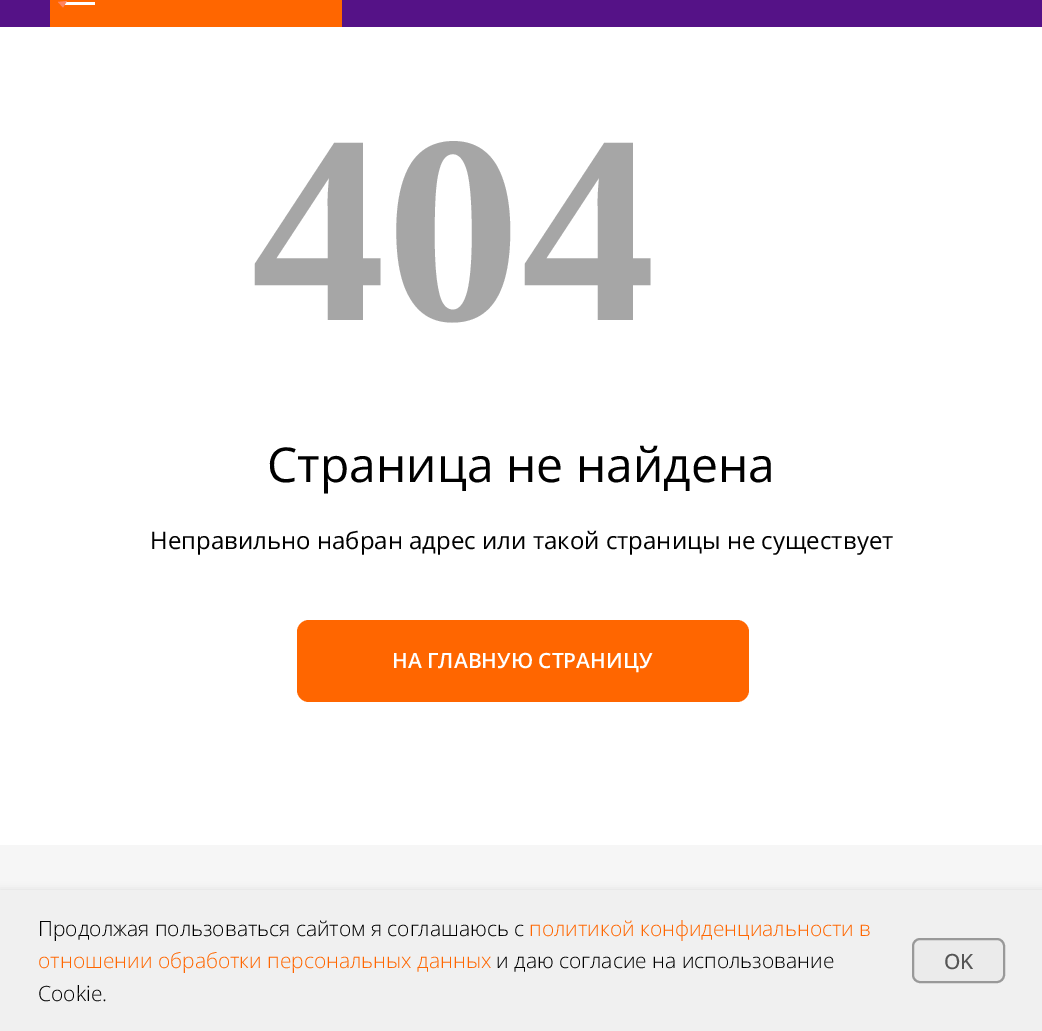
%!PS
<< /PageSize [1042 1031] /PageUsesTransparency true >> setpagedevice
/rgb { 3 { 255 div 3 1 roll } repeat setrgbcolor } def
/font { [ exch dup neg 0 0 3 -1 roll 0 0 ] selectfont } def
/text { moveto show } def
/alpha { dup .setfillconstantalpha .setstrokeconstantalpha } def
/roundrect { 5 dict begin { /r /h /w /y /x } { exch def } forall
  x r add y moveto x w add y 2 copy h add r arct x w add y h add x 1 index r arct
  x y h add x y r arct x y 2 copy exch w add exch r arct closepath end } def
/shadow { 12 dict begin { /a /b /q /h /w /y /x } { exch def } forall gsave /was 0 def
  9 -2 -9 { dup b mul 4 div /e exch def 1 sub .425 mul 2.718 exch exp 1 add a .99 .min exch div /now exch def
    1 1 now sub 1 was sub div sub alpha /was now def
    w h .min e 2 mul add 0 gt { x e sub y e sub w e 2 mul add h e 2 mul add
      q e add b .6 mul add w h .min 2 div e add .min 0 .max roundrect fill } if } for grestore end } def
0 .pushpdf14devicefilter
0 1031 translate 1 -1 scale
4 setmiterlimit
255 255 255 rgb
0 0 1042 1031 rectfill
85 18 135 rgb
0 0 1042 27 rectfill
255 102 0 rgb
50 0 292 27 rectfill
255 255 255 rgb
65 2 30 3 rectfill
255 133 98 rgb
58 2 moveto 9 -1 rlineto -4 6.5 rlineto closepath fill
255 102 0 rgb
297 620 452 82 12 roundrect fill
246 246 246 rgb
0 845 1042 45 rectfill
0 0 0 rgb
0 890 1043 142 0 4 0.1 shadow
240 240 240 rgb
0 890 1042 141 rectfill
235 235 235 rgb
913 939 91 43 7 roundrect gsave fill grestore
153 153 153 rgb
2 setlinewidth
stroke
/LiberationSerif-Bold 270 font
166 166 166 rgb
(404) 251 320 text
/OpenSans-Regular 48 font
0 0 0 rgb
(Страница не найдена) 267 482 text
/OpenSans-Regular 24 font
(Неправильно набран адрес или такой страницы не существует) 150 549 text
/OpenSans-SemiBold 21 font
255 255 255 rgb
(НА ГЛАВНУЮ СТРАНИЦУ) 392 668 text
/OpenSans-Light 21 font
0 0 0 rgb
(Продолжая пользоваться сайтом я соглашаюсь с) 38 936 text
255 102 0 rgb
(политикой конфиденциальности в) 529 936 text
(отношении обработки персональных данных) 38 968 text
0 0 0 rgb
(и даю согласие на использование) 496 968 text
(Cookie.) 38 1001 text
/OpenSans-Medium 21 font
85 85 85 rgb
(OK) 944 969 text
.poppdf14devicefilter showpage
